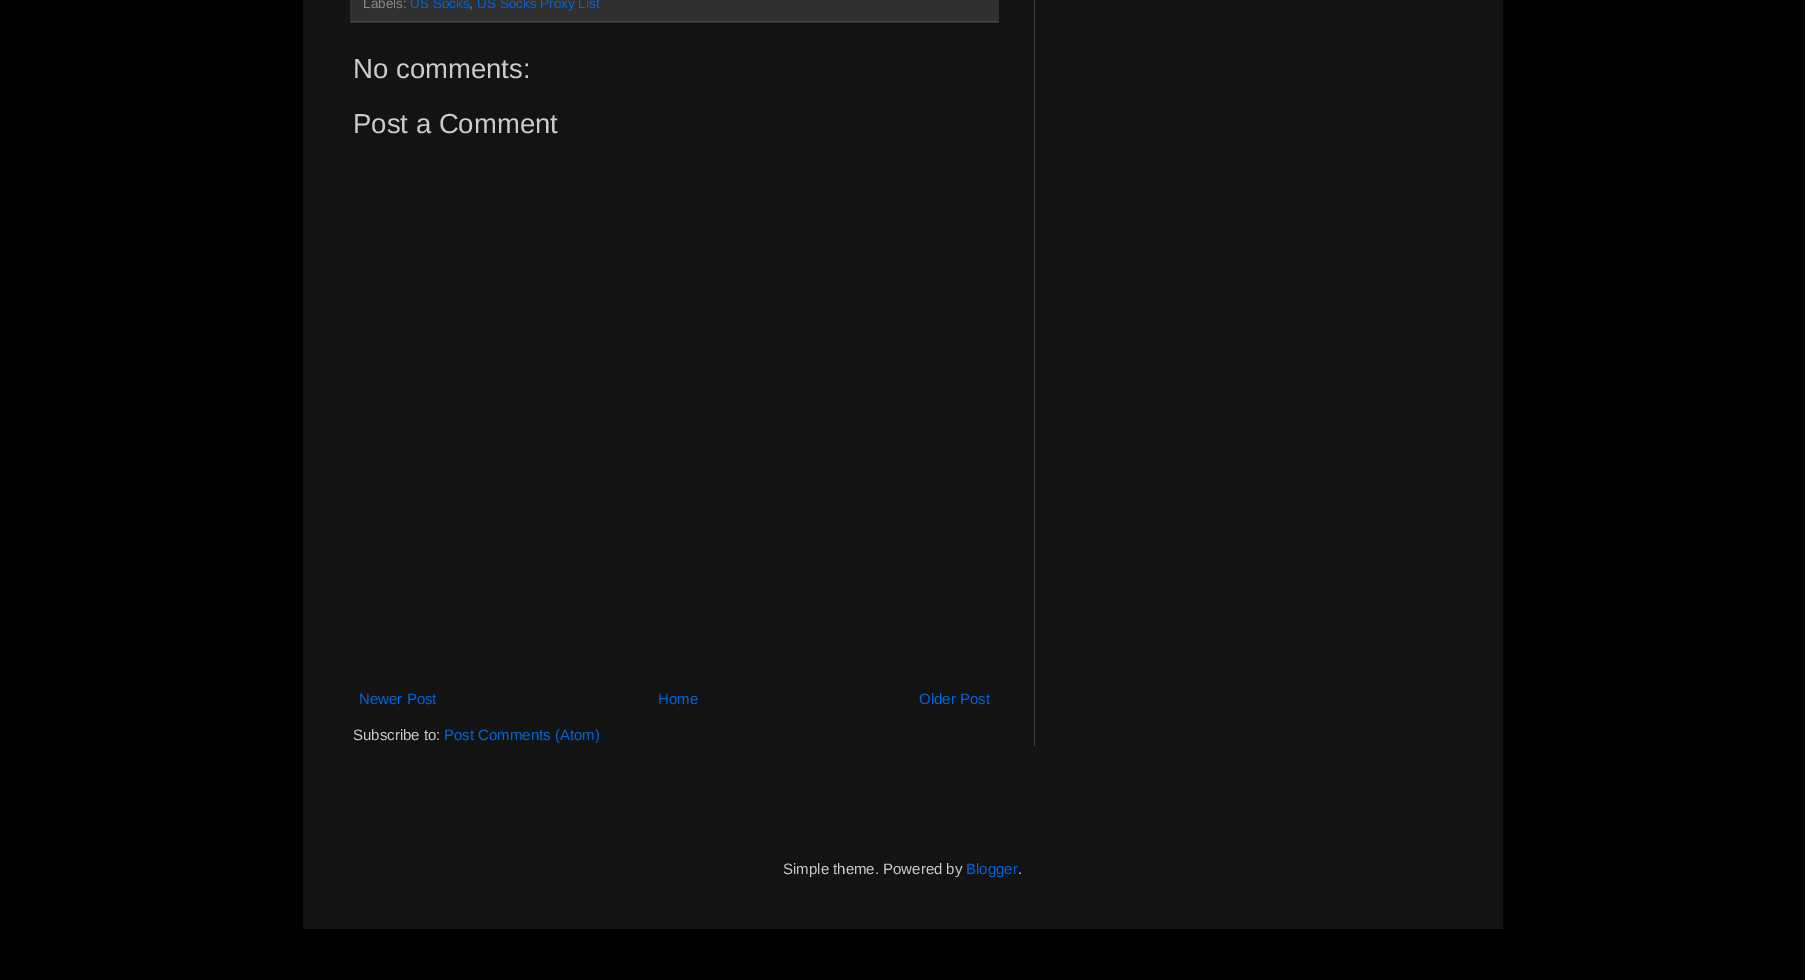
%!PS
<< /PageSize [1805 980] >> setpagedevice
/rgb { 3 { 255 div 3 1 roll } repeat setrgbcolor } def
/font { [ exch dup neg 0 0 3 -1 roll 0 0 ] selectfont } def
/text { moveto show } def
0 980 translate 1 -1 scale
4 setmiterlimit
0 0 0 rgb
0 0 1805 980 rectfill
19 19 19 rgb
303 0 1200 929 rectfill
48 48 48 rgb
350 0 649 23 rectfill
68 68 68 rgb
350 21 649 1 rectfill
64 64 64 rgb
1034 0 1 746 rectfill
/LiberationSans-Regular 13.5 font
136 136 136 rgb
(Labels:) 363 8 text
0 101 221 rgb
(US Socks) 410 8 text
136 136 136 rgb
(,) 469 8 text
0 101 221 rgb
(US Socks Proxy List) 477 8 text
/LiberationSans-Regular 27.5 font
204 204 204 rgb
(No comments:) 353 78 text
(Post a Comment) 353 133 text
/LiberationSans-Regular 15 font
0 101 221 rgb
(Newer Post) 359 704 text
(Home) 658 704 text
(Older Post) 919 704 text
204 204 204 rgb
(Subscribe to:) 353 740 text
0 101 221 rgb
(Post Comments \(Atom\)) 444 740 text
204 204 204 rgb
(Simple theme. Powered by) 783 874 text
0 101 221 rgb
(Blogger) 966 874 text
204 204 204 rgb
(.) 1018 874 text
showpage
